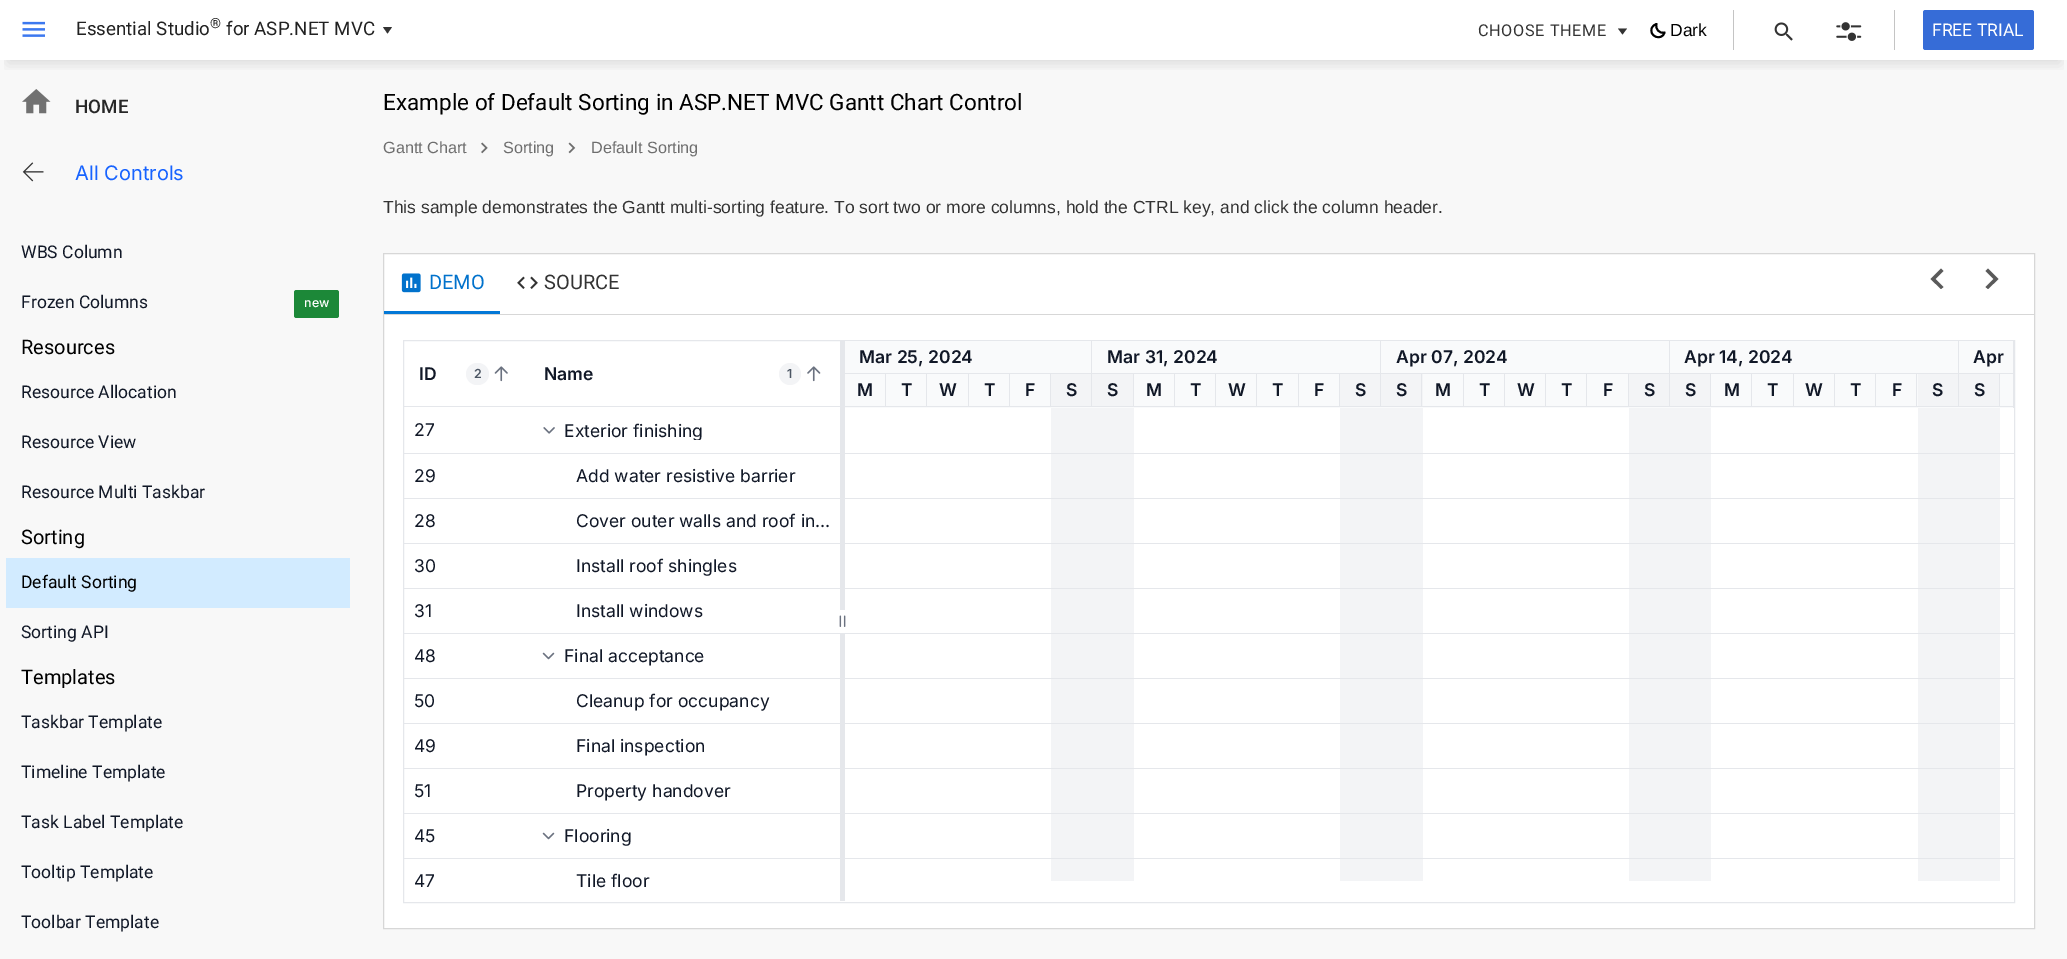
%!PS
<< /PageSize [2067 959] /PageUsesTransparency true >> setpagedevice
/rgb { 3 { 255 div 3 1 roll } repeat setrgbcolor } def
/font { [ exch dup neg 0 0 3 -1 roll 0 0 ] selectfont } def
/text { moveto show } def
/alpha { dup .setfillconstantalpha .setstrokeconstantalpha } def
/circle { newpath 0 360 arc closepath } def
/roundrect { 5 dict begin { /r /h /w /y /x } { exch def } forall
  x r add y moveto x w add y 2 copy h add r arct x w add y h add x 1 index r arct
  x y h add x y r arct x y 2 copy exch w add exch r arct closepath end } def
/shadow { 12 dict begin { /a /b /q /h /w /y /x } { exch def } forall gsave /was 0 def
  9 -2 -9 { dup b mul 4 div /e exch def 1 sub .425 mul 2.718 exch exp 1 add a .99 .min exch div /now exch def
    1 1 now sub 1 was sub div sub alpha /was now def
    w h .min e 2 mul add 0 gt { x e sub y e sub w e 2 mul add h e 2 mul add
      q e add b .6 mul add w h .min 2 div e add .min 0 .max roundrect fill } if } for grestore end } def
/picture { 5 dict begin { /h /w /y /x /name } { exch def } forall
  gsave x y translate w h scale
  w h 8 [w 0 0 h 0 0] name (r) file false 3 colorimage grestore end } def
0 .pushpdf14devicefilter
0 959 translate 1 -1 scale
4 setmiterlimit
255 255 255 rgb
0 0 2067 959 rectfill
248 248 248 rgb
0 60 2067 899 rectfill
gsave
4 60 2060 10 rectclip
0 0 0 rgb
8 18 2052 45 0 7 0.12 shadow
grestore
(img_01.rgb) 22 21 23 16 picture
51 51 51 rgb
383 27 moveto 4.5 6.5 rlineto 4.5 -6.5 rlineto closepath fill
1618 28.5 moveto 4.5 6 rlineto 4.5 -6 rlineto closepath fill
0 0 0 rgb
1.9 setlinewidth
1 setlinecap
1 setlinejoin
1664.5 32.5 moveto -5 1.5 -9.5 -3.5 -8 -8.5 rcurveto -2 0.5 -3.5 2 -4.5 3.5 rcurveto -4 9 10 14 12.5 5 rcurveto closepath stroke
196 196 196 rgb
1733 10 1 40 rectfill
(img_02.rgb) 1774 22 19 19 picture
(img_03.rgb) 1836 22 26 19 picture
1894 10 1 40 rectfill
54 108 215 rgb
1923 10 111 40 2.5 roundrect fill
(img_04.rgb) 22 89 29 25 picture
(img_05.rgb) 22 162 22 20 picture
28 136 56 rgb
294 290 45 28 2.5 roundrect fill
210 235 255 rgb
6 558 344 50 rectfill
(img_06.rgb) 481 142 7 12 picture
(img_07.rgb) 568 142 8 12 picture
255 255 255 rgb
383.5 253.5 moveto 1651 0 rlineto 0 675 rlineto -1651 0 rlineto closepath gsave fill grestore
215 215 215 rgb
1 setlinewidth
0 setlinecap
0 setlinejoin
stroke
384 314 1650 1 rectfill
(img_08.rgb) 401 273 20 20 picture
(img_09.rgb) 517 276 21 13 picture
2 120 215 rgb
384 311 116 3 rectfill
90 90 90 rgb
1943.5 287 moveto -8 -8 rlineto 8 -8 rlineto -2.5 -2.5 rlineto -10.5 10.5 rlineto 10.5 10 rlineto closepath fill
1985.5 287 moveto 8 -8 rlineto -8 -8 rlineto 2.5 -2.5 rlineto 10.5 10.5 rlineto -10.5 10 rlineto closepath fill
229 231 235 rgb
403.5 340.5 1611 562 rectstroke
404 406 436 1 rectfill
243 244 246 rgb
466 363 23 22 11 roundrect fill
(img_10.rgb) 494 366 14 16 picture
790 374 11 circle fill
(img_11.rgb) 807 366 14 16 picture
(img_12.rgb) 543 427 12 7 picture
229 231 235 rgb
404 453 436 1 rectfill
404 498 436 1 rectfill
404 543 436 1 rectfill
404 588 436 1 rectfill
404 633 436 1 rectfill
(img_13.rgb) 542 652 13 8 picture
404 678 436 1 rectfill
404 723 436 1 rectfill
404 768 436 1 rectfill
404 813 436 1 rectfill
(img_13.rgb) 542 832 13 8 picture
404 858 436 1 rectfill
840 341 5 560 rectfill
255 255 255 rgb
840 610 5 23 rectfill
(img_14.rgb) 839 615 7 12 picture
249 250 251 rgb
845 341 1168 67 rectfill
229 231 235 rgb
2013 341 1 67 rectfill
845 406 1169 1 rectfill
1091 341 1 33 rectfill
845 373 248 1 rectfill
1380 341 1 65 rectfill
1093 373 288 1 rectfill
1669 341 1 65 rectfill
1381 373 289 1 rectfill
1958 341 1 65 rectfill
1670 373 343 1 rectfill
885 374 1 32 rectfill
926 374 1 32 rectfill
968 374 1 32 rectfill
1009 374 1 32 rectfill
1050 374 1 32 rectfill
243 244 246 rgb
1051 374 82 32 rectfill
229 231 235 rgb
1091 374 1 32 rectfill
1133 374 1 32 rectfill
1174 374 1 32 rectfill
1215 374 1 32 rectfill
1256 374 1 32 rectfill
1298 374 1 32 rectfill
1339 374 1 32 rectfill
243 244 246 rgb
1340 374 40 32 rectfill
1381 374 42 32 rectfill
229 231 235 rgb
1421 374 1 32 rectfill
1463 374 1 32 rectfill
1504 374 1 32 rectfill
1545 374 1 32 rectfill
1586 374 1 32 rectfill
1628 374 1 32 rectfill
243 244 246 rgb
1629 374 40 32 rectfill
1670 374 40 32 rectfill
229 231 235 rgb
1710 374 1 32 rectfill
1751 374 1 32 rectfill
1793 374 1 32 rectfill
1834 374 1 32 rectfill
1875 374 1 32 rectfill
1916 374 1 32 rectfill
243 244 246 rgb
1918 374 40 32 rectfill
1959 374 40 32 rectfill
229 231 235 rgb
1999 374 1 32 rectfill
243 244 246 rgb
1051 408 83 473 rectfill
1340 408 83 473 rectfill
1629 408 82 473 rectfill
1918 408 82 473 rectfill
229 231 235 rgb
845 453 1169 1 rectfill
845 498 1169 1 rectfill
845 543 1169 1 rectfill
845 588 1169 1 rectfill
845 633 1169 1 rectfill
845 678 1169 1 rectfill
845 723 1169 1 rectfill
845 768 1169 1 rectfill
845 813 1169 1 rectfill
845 858 1169 1 rectfill
/Roboto-Regular 18.75 font
33 33 33 rgb
(Essential Studio) 76 35 text
/Roboto-Regular 14 font
(®) 210 28 text
/Roboto-Regular 18.75 font
(for ASP.NET MVC) 226 35 text
/Roboto-Regular 16.25 font
51 51 51 rgb
1478 36 moveto 0.6 0 (CHOOSE THEME) ashow
/LiberationSans-Regular 17.5 font
0 0 0 rgb
(Dark) 1670 36 text
/Roboto-Regular 17.5 font
255 255 255 rgb
(FREE TRIAL) 1932 36 text
/Roboto-Medium 18.75 font
39 39 39 rgb
(HOME) 75 113 text
/Inter-Regular 20 font
23 99 255 rgb
(All Controls) 75 180 text
/Roboto-Regular 17.5 font
17 24 39 rgb
(WBS Column) 21 258 text
(Frozen Columns) 21 308 text
/Inter-Medium 12.5 font
255 255 255 rgb
(new) 304 307 text
/Roboto-Regular 20 font
0 0 0 rgb
(Resources) 21 354 text
/Roboto-Regular 17.5 font
17 24 39 rgb
(Resource Allocation) 21 398 text
(Resource View) 21 448 text
(Resource Multi Taskbar) 21 498 text
/Roboto-Regular 20 font
0 0 0 rgb
(Sorting) 21 544 text
/Roboto-Regular 17.5 font
(Default Sorting) 21 588 text
17 24 39 rgb
(Sorting API) 21 638 text
/Roboto-Regular 20 font
0 0 0 rgb
(Templates) 21 684 text
/Roboto-Regular 17.5 font
17 24 39 rgb
(Taskbar Template) 21 728 text
(Timeline Template) 21 778 text
(Task Label Template) 21 828 text
(Tooltip Template) 21 878 text
(Toolbar Template) 21 928 text
/Roboto-Regular 22.5 font
0 0 0 rgb
(Example of Default Sorting in ASP.NET MVC Gantt Chart Control) 383 110 text
/LiberationSans-Regular 16.25 font
110 110 110 rgb
(Gantt Chart) 383 153 text
(Sorting) 503 153 text
(Default Sorting) 591 153 text
/LiberationSans-Regular 17.5 font
51 51 51 rgb
(This sample demonstrates the Gantt multi-sorting feature. To sort two or more columns, hold the CTRL key, and click the column header.) 383 213 text
/Roboto-Regular 20 font
1 114 204 rgb
(DEMO) 429 289 text
51 51 51 rgb
(SOURCE) 544 289 text
/Inter-SemiBold 17.5 font
17 24 39 rgb
(ID) 419 380 text
/Inter-SemiBold 12.5 font
75 85 99 rgb
(2) 474 378 text
/Inter-SemiBold 17.5 font
17 24 39 rgb
(Name) 544 380 text
/Inter-SemiBold 12.5 font
75 85 99 rgb
(1) 787 378 text
/Inter-Regular 17.5 font
17 24 39 rgb
(27) 414 436 text
gsave
539 419 292 21 rectclip
(Exterior finishing) 564 437 text
grestore
(29) 414 482 text
(Add water resistive barrier) 576 482 text
(28) 414 527 text
(Cover outer walls and roof in…) 576 527 text
(30) 414 572 text
(Install roof shingles) 576 572 text
(31) 414 617 text
(Install windows) 576 617 text
(48) 414 662 text
(Final acceptance) 564 662 text
(50) 414 707 text
(Cleanup for occupancy) 576 707 text
(49) 414 752 text
(Final inspection) 576 752 text
(51) 414 797 text
(Property handover) 576 797 text
(45) 414 842 text
(Flooring) 564 842 text
(47) 414 887 text
(Tile floor) 576 887 text
/Inter-SemiBold 17.5 font
(Mar 25, 2024) 859 363 text
(Mar 31, 2024) 1107 363 text
(Apr 07, 2024) 1396 363 text
(Apr 14, 2024) 1684 363 text
(Apr) 1973 363 text
(M) 857 396 text
(T) 901 396 text
(W) 939 396 text
(T) 984 396 text
(F) 1025 396 text
(S) 1066 396 text
(S) 1107 396 text
(M) 1146 396 text
(T) 1190 396 text
(W) 1228 396 text
(T) 1272 396 text
(F) 1314 396 text
(S) 1355 396 text
(S) 1396 396 text
(M) 1435 396 text
(T) 1479 396 text
(W) 1517 396 text
(T) 1561 396 text
(F) 1603 396 text
(S) 1644 396 text
(S) 1685 396 text
(M) 1724 396 text
(T) 1767 396 text
(W) 1805 396 text
(T) 1850 396 text
(F) 1892 396 text
(S) 1932 396 text
(S) 1974 396 text
.poppdf14devicefilter showpage
